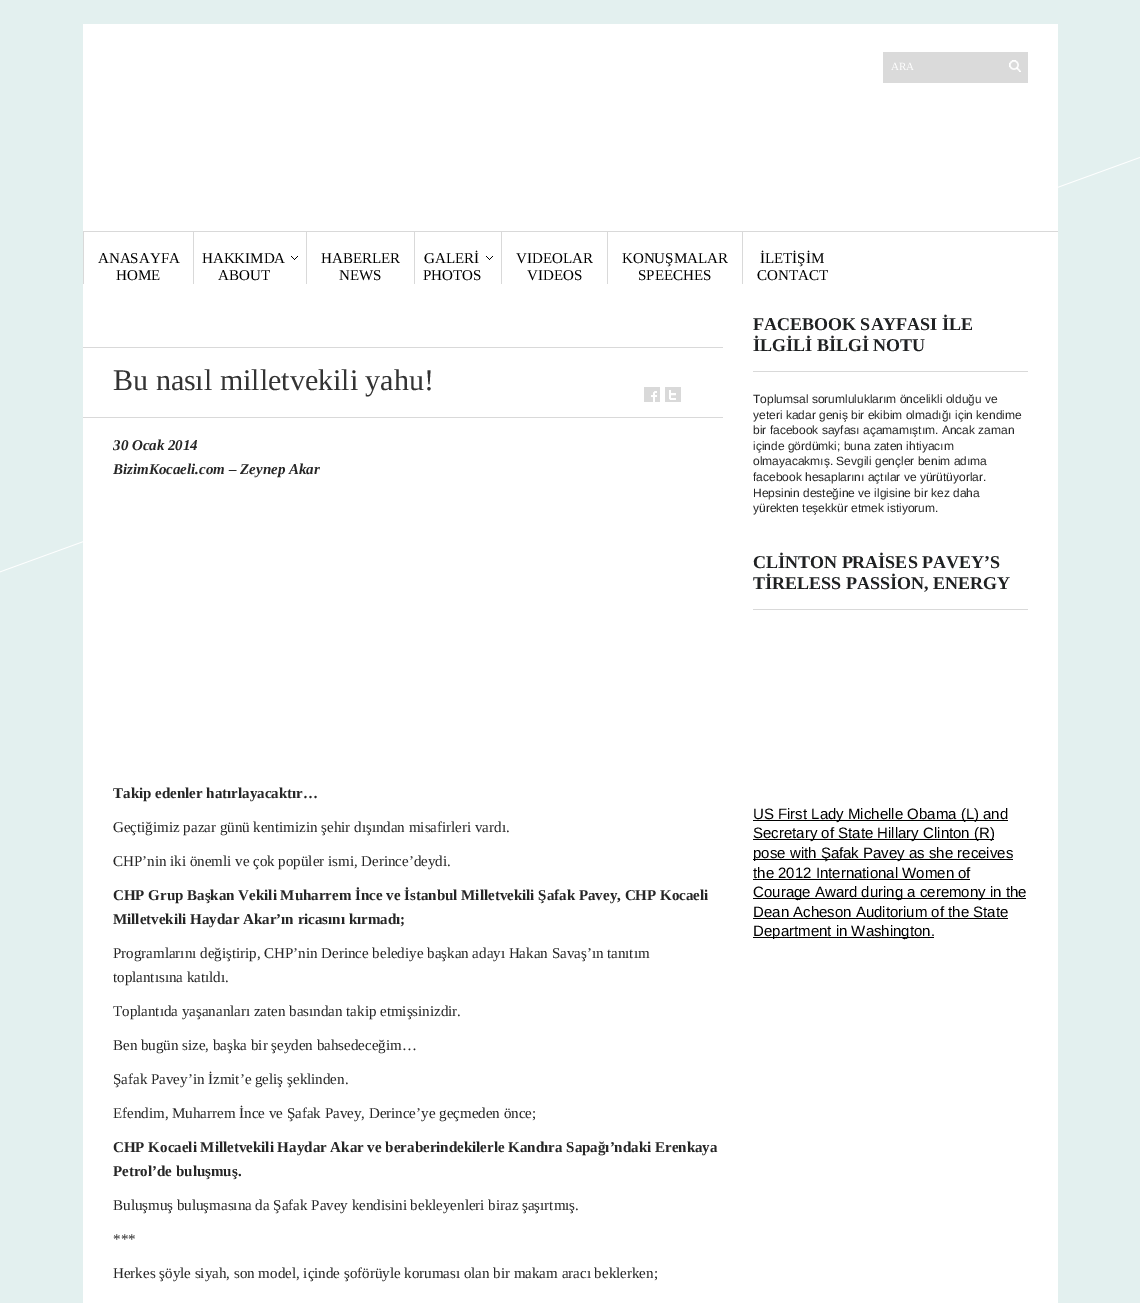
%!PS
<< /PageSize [1140 1303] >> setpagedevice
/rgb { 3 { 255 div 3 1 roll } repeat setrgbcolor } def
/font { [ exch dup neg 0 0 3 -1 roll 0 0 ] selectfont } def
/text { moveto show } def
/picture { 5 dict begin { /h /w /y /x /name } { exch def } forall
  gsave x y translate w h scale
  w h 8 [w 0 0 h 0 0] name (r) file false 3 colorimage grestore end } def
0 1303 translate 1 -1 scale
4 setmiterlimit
227 240 239 rgb
0 0 1140 1303 rectfill
(img_01.rgb) 0 157 1140 416 picture
255 255 255 rgb
83 24 975 1279 rectfill
218 218 218 rgb
883 52 145 31 rectfill
(img_02.rgb) 1009 60 12 12 picture
217 217 217 rgb
83 231 975 1 rectfill
83 232 1 52 rectfill
193 232 1 52 rectfill
(img_03.rgb) 291 256 7 4 picture
306 232 1 52 rectfill
414 232 1 52 rectfill
(img_03.rgb) 486 256 7 4 picture
501 232 1 52 rectfill
607 232 1 52 rectfill
742 232 1 52 rectfill
83 347 640 1 rectfill
83 417 640 1 rectfill
(img_04.rgb) 644 387 16 15 picture
(img_05.rgb) 665 387 16 15 picture
753 371 275 1 rectfill
753 609 275 1 rectfill
0 0 0 rgb
753 820 255 1 rectfill
753 839 241 1 rectfill
753 859 260 1 rectfill
753 879 217 1 rectfill
753 898 273 1 rectfill
753 918 255 1 rectfill
753 937 181 1 rectfill
/LiberationSerif-Regular 11 font
255 255 255 rgb
(ARA) 891 70 text
/LiberationSerif-Regular 15 font
0 0 0 rgb
(ANASAYFA) 98 263 text
(HOME) 116 280 text
(HAKKIMDA) 202 263 text
(ABOUT) 218 280 text
(HABERLER) 321 263 text
(NEWS) 339 280 text
(GALERİ) 424 263 text
(PHOTOS) 423 280 text
(VIDEOLAR) 516 263 text
(VIDEOS) 527 280 text
(KONUŞMALAR) 622 263 text
(SPEECHES) 638 280 text
(İLETİŞİM) 760 263 text
(CONTACT) 757 280 text
/LiberationSerif-Regular 30 font
51 51 51 rgb
(Bu nasıl milletvekili yahu!) 113 390 text
/LiberationSerif-BoldItalic 15 font
38 38 38 rgb
(30 Ocak 2014) 113 450 text
(BizimKocaeli.com – Zeynep Akar) 113 474 text
/LiberationSerif-Bold 15 font
(Takip edenler hatırlayacaktır…) 113 798 text
/LiberationSerif-Regular 15 font
(Geçtiğimiz pazar günü kentimizin şehir dışından misafirleri vardı.) 113 832 text
(CHP’nin iki önemli ve çok popüler ismi, Derince’deydi.) 113 866 text
/LiberationSerif-Bold 15 font
(CHP Grup Başkan Vekili Muharrem İnce ve İstanbul Milletvekili Şafak Pavey, CHP Kocaeli) 113 900 text
(Milletvekili Haydar Akar’ın ricasını kırmadı;) 113 924 text
/LiberationSerif-Regular 15 font
(Programlarını değiştirip, CHP’nin Derince belediye başkan adayı Hakan Savaş’ın tanıtım) 113 958 text
(toplantısına katıldı.) 113 982 text
(Toplantıda yaşananları zaten basından takip etmişsinizdir.) 113 1016 text
(Ben bugün size, başka bir şeyden bahsedeceğim…) 113 1050 text
(Şafak Pavey’in İzmit’e geliş şeklinden.) 113 1084 text
(Efendim, Muharrem İnce ve Şafak Pavey, Derince’ye geçmeden önce;) 113 1118 text
/LiberationSerif-Bold 15 font
(CHP Kocaeli Milletvekili Haydar Akar ve beraberindekilerle Kandıra Sapağı’ndaki Erenkaya) 113 1152 text
(Petrol’de buluşmuş.) 113 1176 text
/LiberationSerif-Regular 15 font
(Buluşmuş buluşmasına da Şafak Pavey kendisini bekleyenleri biraz şaşırtmış.) 113 1210 text
(***) 113 1244 text
(Herkes şöyle siyah, son model, içinde şoförüyle koruması olan bir makam aracı beklerken;) 113 1278 text
/LiberationSerif-Bold 18 font
31 33 34 rgb
(FACEBOOK SAYFASI İLE) 753 330 text
(İLGİLİ BİLGİ NOTU) 753 351 text
/LiberationSans-Regular 12 font
38 38 38 rgb
(Toplumsal sorumluluklarım öncelikli olduğu ve) 753 403 text
(yeteri kadar geniş bir ekibim olmadığı için kendime) 753 419 text
(bir facebook sayfası açamamıştım. Ancak zaman) 753 434 text
(içinde gördümki; buna zaten ihtiyacım) 753 450 text
(olmayacakmış. Sevgili gençler benim adıma) 753 465 text
(facebook hesaplarını açtılar ve yürütüyorlar.) 753 481 text
(Hepsinin desteğine ve ilgisine bir kez daha) 753 497 text
(yürekten teşekkür etmek istiyorum.) 753 512 text
/LiberationSerif-Bold 18 font
31 33 34 rgb
(CLİNTON PRAİSES PAVEY’S) 753 568 text
(TİRELESS PASSİON, ENERGY) 753 589 text
/LiberationSans-Regular 15 font
0 0 0 rgb
(US First Lady Michelle Obama \(L\) and) 753 819 text
(Secretary of State Hillary Clinton \(R\)) 753 838 text
(pose with Şafak Pavey as she receives) 753 858 text
(the 2012 International Women of) 753 878 text
(Courage Award during a ceremony in the) 753 897 text
(Dean Acheson Auditorium of the State) 753 917 text
(Department in Washington.) 753 936 text
showpage
